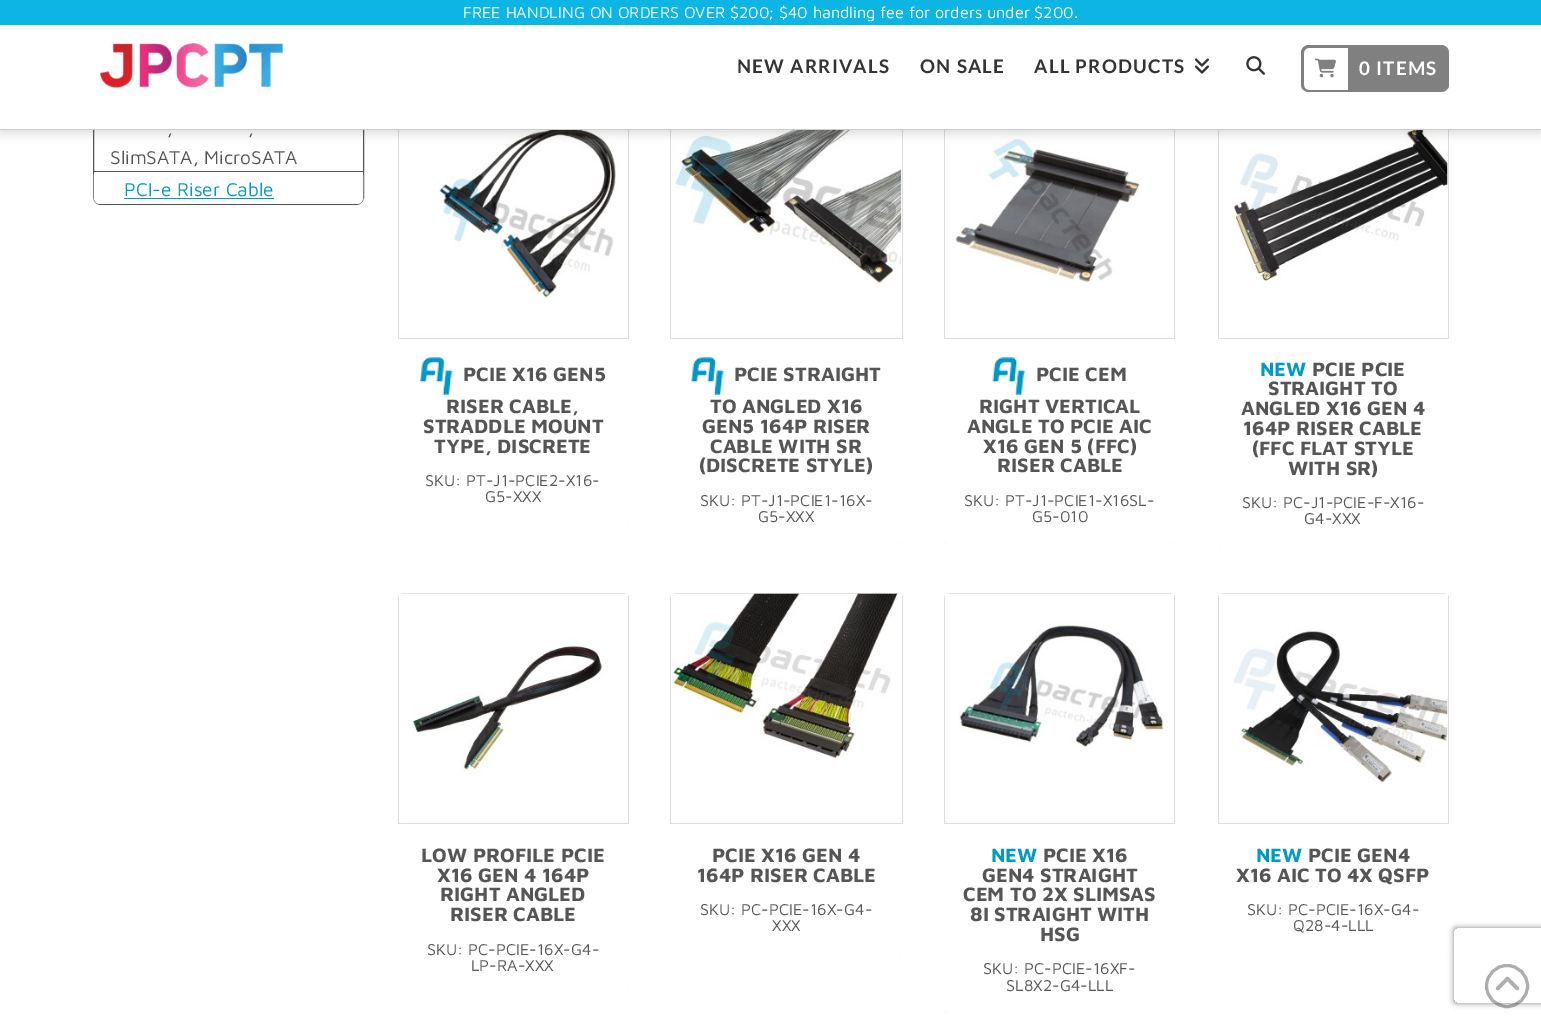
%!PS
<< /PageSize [1541 1020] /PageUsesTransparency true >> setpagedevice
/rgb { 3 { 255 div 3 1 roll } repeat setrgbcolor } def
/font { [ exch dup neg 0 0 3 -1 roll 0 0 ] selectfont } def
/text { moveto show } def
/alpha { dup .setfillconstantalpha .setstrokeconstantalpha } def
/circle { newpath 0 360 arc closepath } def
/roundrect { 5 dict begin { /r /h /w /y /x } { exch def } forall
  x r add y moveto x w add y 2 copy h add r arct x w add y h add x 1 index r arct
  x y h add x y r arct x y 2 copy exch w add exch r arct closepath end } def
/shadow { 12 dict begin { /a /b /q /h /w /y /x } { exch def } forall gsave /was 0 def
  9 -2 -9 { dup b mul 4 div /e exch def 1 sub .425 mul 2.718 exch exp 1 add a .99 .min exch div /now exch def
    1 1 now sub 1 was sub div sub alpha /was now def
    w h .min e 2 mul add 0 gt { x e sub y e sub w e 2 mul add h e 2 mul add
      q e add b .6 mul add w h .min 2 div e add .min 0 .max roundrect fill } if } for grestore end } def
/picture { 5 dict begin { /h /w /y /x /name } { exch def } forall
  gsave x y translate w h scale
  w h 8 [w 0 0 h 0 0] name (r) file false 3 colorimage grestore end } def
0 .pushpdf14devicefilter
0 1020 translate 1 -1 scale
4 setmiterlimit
255 255 255 rgb
0 0 1541 1020 rectfill
85 85 85 rgb
93.5 -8.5 270 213 7.5 roundrect stroke
gsave
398 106 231 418 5 roundrect clip newpath
0 0 0 rgb
398 343 231 185 5 4.5 0.13 shadow
grestore
221 221 221 rgb
398 111 moveto 0 228 rlineto 231 0 rlineto 0 -228 rlineto 0 -1 0 -2 -1 -3 rcurveto 0 230 rlineto -229 0 rlineto 0 -230 rlineto closepath 403 106 moveto -3 1 rlineto 227 0 rlineto -3 -1 rlineto closepath eofill
(img_05.rgb) 439 130 181 169 picture
gsave
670 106 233 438 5 roundrect clip newpath
0 0 0 rgb
670 343 233 205 5 4.5 0.13 shadow
grestore
670 111 moveto 0 228 rlineto 233 0 rlineto 0 -228 rlineto 0 -1 0 -2 -1 -3 rcurveto 0 230 rlineto -231 0 rlineto 0 -230 rlineto closepath 675 106 moveto -3 1 rlineto 229 0 rlineto -3 -1 rlineto closepath eofill
(img_07.rgb) 672 130 230 156 picture
gsave
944 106 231 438 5 roundrect clip newpath
0 0 0 rgb
944 343 231 205 5 4.5 0.13 shadow
grestore
944 111 moveto 0 228 rlineto 231 0 rlineto 0 -228 rlineto 0 -1 0 -2 -1 -3 rcurveto 0 230 rlineto -229 0 rlineto 0 -230 rlineto closepath 949 106 moveto -3 1 rlineto 227 0 rlineto -3 -1 rlineto closepath eofill
(img_09.rgb) 952 139 188 143 picture
gsave
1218 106 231 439 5 roundrect clip newpath
0 0 0 rgb
1218 343 231 206 5 4.5 0.13 shadow
grestore
1218 111 moveto 0 228 rlineto 231 0 rlineto 0 -228 rlineto 0 -1 0 -2 -1 -3 rcurveto 0 230 rlineto -229 0 rlineto 0 -230 rlineto closepath 1223 106 moveto -3 1 rlineto 227 0 rlineto -3 -1 rlineto closepath eofill
(img_11.rgb) 1233 130 215 158 picture
0 0 0 rgb
0 4 1541 130 0 5 0.13 shadow
gsave 0 0 moveto 1541 0 rlineto 0 25 rlineto -1541 0 rlineto closepath clip newpath
<< /ShadingType 2 /ColorSpace /DeviceRGB /Coords [771 -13 771 484] /Extend [true true] /Function << /FunctionType 2 /Domain [0 1] /C0 [0.055 0.718 0.902] /C1 [0 0.6 0.78] /N 1 >> >> shfill grestore
255 255 255 rgb
0 25 1541 104 rectfill
204 204 204 rgb
0 129 1541 1 rectfill
(img_01.rgb) 99 43 185 45 picture
(img_02.rgb) 1194 58 15 16 picture
(img_03.rgb) 1246 56 19 19 picture
128 128 128 rgb
1309 45 moveto 132 0 rlineto 4 0 8 3 8 8 rcurveto 0 32 rlineto 0 4 -4 7 -8 7 rcurveto -132 0 rlineto -4 0 -8 -3 -8 -7 rcurveto 0 -32 rlineto 0 -5 4 -8 8 -8 rcurveto closepath 1309 48 moveto 132 0 rlineto 4 0 8 2 8 5 rcurveto 0 32 rlineto 0 3 -4 5 -8 5 rcurveto -132 0 rlineto -3 0 -5 -2 -5 -5 rcurveto 0 -32 rlineto 0 -3 2 -5 5 -5 rcurveto closepath eofill
(img_04.rgb) 1315 58 21 20 picture
1348 48 moveto 0 42 rlineto 93 0 rlineto 4 0 8 -2 8 -5 rcurveto 0 -32 rlineto 0 -2 -2 -4 -5 -5 rcurveto closepath fill
85 85 85 rgb
94 171 269 1 rectfill
255 255 255 rgb
94 173 moveto 269 0 rlineto 0 25 rlineto 0 3.5 -2.5 6 -6 6 rcurveto -257 0 rlineto -3.5 0 -6 -2.5 -6 -6 rcurveto closepath fill
gsave
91 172 moveto 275 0 rlineto 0 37 rlineto -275 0 rlineto closepath 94 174 moveto 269 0 rlineto 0 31 rlineto -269 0 rlineto closepath eoclip newpath
94 175 269 31 0 0.5 0.95 shadow
grestore
0 154 199 rgb
124 198 150 1 rectfill
255 255 255 rgb
398 339 moveto 231 0 rlineto 0 180 rlineto 0 3 -2 5 -5 5 rcurveto -221 0 rlineto -3 0 -5 -2 -5 -5 rcurveto closepath fill
(img_06.rgb) 420 357 33 38 picture
670 339 moveto 233 0 rlineto 0 200 rlineto 0 3 -2 5 -5 5 rcurveto -223 0 rlineto -3 0 -5 -2 -5 -5 rcurveto closepath fill
(img_08.rgb) 691 357 33 38 picture
944 339 moveto 231 0 rlineto 0 200 rlineto 0 3 -2 5 -5 5 rcurveto -221 0 rlineto -3 0 -5 -2 -5 -5 rcurveto closepath fill
(img_10.rgb) 992 357 34 38 picture
1218 339 moveto 231 0 rlineto 0 201 rlineto 0 3 -2 5 -5 5 rcurveto -221 0 rlineto -3 0 -5 -2 -5 -5 rcurveto closepath fill
gsave
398 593 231 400 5 roundrect clip newpath
0 0 0 rgb
398 828 231 168 5 4.5 0.13 shadow
grestore
221 221 221 rgb
398 598 moveto 0 226 rlineto 231 0 rlineto 0 -226 rlineto 0 -1 0 -2 -1 -3 rcurveto 0 228 rlineto -229 0 rlineto 0 -228 rlineto closepath 403 593 moveto -3 1 rlineto 227 0 rlineto -3 -1 rlineto closepath eofill
(img_12.rgb) 401 593 225 181 picture
255 255 255 rgb
398 824 moveto 231 0 rlineto 0 164 rlineto 0 3 -2 5 -5 5 rcurveto -221 0 rlineto -3 0 -5 -2 -5 -5 rcurveto closepath fill
gsave
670 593 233 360 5 roundrect clip newpath
0 0 0 rgb
670 828 233 128 5 4.5 0.13 shadow
grestore
221 221 221 rgb
670 598 moveto 0 226 rlineto 233 0 rlineto 0 -226 rlineto 0 -1 0 -2 -1 -3 rcurveto 0 228 rlineto -231 0 rlineto 0 -228 rlineto closepath 675 593 moveto -3 1 rlineto 229 0 rlineto -3 -1 rlineto closepath eofill
(img_13.rgb) 671 593 230 166 picture
255 255 255 rgb
670 824 moveto 233 0 rlineto 0 124 rlineto 0 3 -2 5 -5 5 rcurveto -223 0 rlineto -3 0 -5 -2 -5 -5 rcurveto closepath fill
gsave
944 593 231 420 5 roundrect clip newpath
0 0 0 rgb
944 828 231 188 5 4.5 0.13 shadow
grestore
221 221 221 rgb
944 598 moveto 0 226 rlineto 231 0 rlineto 0 -226 rlineto 0 -1 0 -2 -1 -3 rcurveto 0 228 rlineto -229 0 rlineto 0 -228 rlineto closepath 949 593 moveto -3 1 rlineto 227 0 rlineto -3 -1 rlineto closepath eofill
(img_14.rgb) 947 593 225 155 picture
255 255 255 rgb
944 824 moveto 231 0 rlineto 0 184 rlineto 0 3 -2 5 -5 5 rcurveto -221 0 rlineto -3 0 -5 -2 -5 -5 rcurveto closepath fill
gsave
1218 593 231 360 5 roundrect clip newpath
0 0 0 rgb
1218 828 231 128 5 4.5 0.13 shadow
grestore
221 221 221 rgb
1218 598 moveto 0 226 rlineto 231 0 rlineto 0 -226 rlineto 0 -1 0 -2 -1 -3 rcurveto 0 228 rlineto -229 0 rlineto 0 -228 rlineto closepath 1223 593 moveto -3 1 rlineto 227 0 rlineto -3 -1 rlineto closepath eofill
(img_15.rgb) 1221 593 227 190 picture
255 255 255 rgb
1218 824 moveto 231 0 rlineto 0 124 rlineto 0 3 -2 5 -5 5 rcurveto -221 0 rlineto -3 0 -5 -2 -5 -5 rcurveto closepath fill
gsave
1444 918 moveto 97 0 rlineto 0 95 rlineto -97 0 rlineto closepath 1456.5 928 moveto 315 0 rlineto 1.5 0 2.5 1 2.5 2.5 rcurveto 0 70 rlineto 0 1.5 -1 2.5 -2.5 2.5 rcurveto -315 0 rlineto -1.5 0 -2.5 -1 -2.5 -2.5 rcurveto 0 -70 rlineto 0 -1.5 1 -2.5 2.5 -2.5 rcurveto closepath eoclip newpath
128 128 128 rgb
1454 928 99 75 2.5 3 1 shadow
grestore
0.38 alpha
39 39 39 rgb
3 setlinewidth
1507 986 20.5 circle stroke
1 alpha
(img_16.rgb) 1495 976 25 15 picture
/MavenPro-Regular 16.25 font
255 255 255 rgb
(FREE HANDLING ON ORDERS OVER $200; $40 handling fee for orders under $200.) 463 18 text
/Lato-Bold 18.75 font
51 51 51 rgb
737 73 moveto 1.25 0 (NEW ARRIVALS) ashow
920 73 moveto 1.25 0 (ON SALE) ashow
1034 73 moveto 1.25 0 (ALL PRODUCTS) ashow
255 255 255 rgb
1359 75 moveto 1.25 0 (0 ITEMS) ashow
/MavenPro-Regular 19.1 font
85 85 85 rgb
(,) 167 135 text
(,) 248 135 text
(SlimSATA, MicroSATA) 110 164 text
0 154 199 rgb
(PCI-e Riser Cable) 124 196 text
/MavenPro-Bold 20 font
85 85 85 rgb
(PCIE X16 GEN5) 463 381 text
(RISER CABLE,) 446 413 text
(STRADDLE MOUNT) 423 433 text
(TYPE, DISCRETE) 434 453 text
/MavenPro-Regular 16.25 font
(SKU: PT-J1-PCIE2-X16-) 425 486 text
(G5-XXX) 485 502 text
/MavenPro-Bold 20 font
(PCIE STRAIGHT) 734 381 text
(TO ANGLED X16) 710 413 text
(GEN5 164P RISER) 702 433 text
(CABLE WITH SR) 710 453 text
(\(DISCRETE STYLE\)) 699 472 text
/MavenPro-Regular 16.25 font
(SKU: PT-J1-PCIE1-16X-) 700 506 text
(G5-XXX) 758 522 text
/MavenPro-Bold 20 font
(PCIE CEM) 1036 381 text
(RIGHT VERTICAL) 979 413 text
(ANGLE TO PCIE AIC) 967 433 text
(X16 GEN 5 \(FFC\)) 983 453 text
(RISER CABLE) 997 472 text
/MavenPro-Regular 16.25 font
(SKU: PT-J1-PCIE1-X16SL-) 964 506 text
(G5-010) 1032 522 text
/MavenPro-Bold 20 font
0 154 199 rgb
(NEW) 1260 376 text
85 85 85 rgb
(PCIE PCIE) 1312 376 text
(STRAIGHT TO) 1268 395 text
(ANGLED X16 GEN 4) 1241 415 text
(164P RISER CABLE) 1243 435 text
(\(FFC FLAT STYLE) 1252 455 text
(WITH SR\)) 1288 475 text
/MavenPro-Regular 16.25 font
(SKU: PC-J1-PCIE-F-X16-) 1242 508 text
(G4-XXX) 1304 524 text
/MavenPro-Bold 20 font
(LOW PROFILE PCIE) 421 862 text
(X16 GEN 4 164P) 437 882 text
(RIGHT ANGLED) 440 901 text
(RISER CABLE) 450 921 text
/MavenPro-Regular 16.25 font
(SKU: PC-PCIE-16X-G4-) 427 955 text
(LP-RA-XXX) 471 971 text
/MavenPro-Bold 20 font
(PCIE X16 GEN 4) 712 862 text
(164P RISER CABLE) 697 882 text
/MavenPro-Regular 16.25 font
(SKU: PC-PCIE-16X-G4-) 700 915 text
(XXX) 772 931 text
/MavenPro-Bold 20 font
0 154 199 rgb
(NEW) 991 862 text
85 85 85 rgb
(PCIE X16) 1043 862 text
(GEN4 STRAIGHT) 982 882 text
(CEM TO 2X SLIMSAS) 963 901 text
(8I STRAIGHT WITH) 970 921 text
(HSG) 1040 941 text
/MavenPro-Regular 16.25 font
(SKU: PC-PCIE-16XF-) 983 974 text
(SL8X2-G4-LLL) 1006 991 text
/MavenPro-Bold 20 font
0 154 199 rgb
(NEW) 1256 862 text
85 85 85 rgb
(PCIE GEN4) 1308 862 text
(X16 AIC TO 4X QSFP) 1236 882 text
/MavenPro-Regular 16.25 font
(SKU: PC-PCIE-16X-G4-) 1247 915 text
(Q28-4-LLL) 1293 931 text
.poppdf14devicefilter showpage
